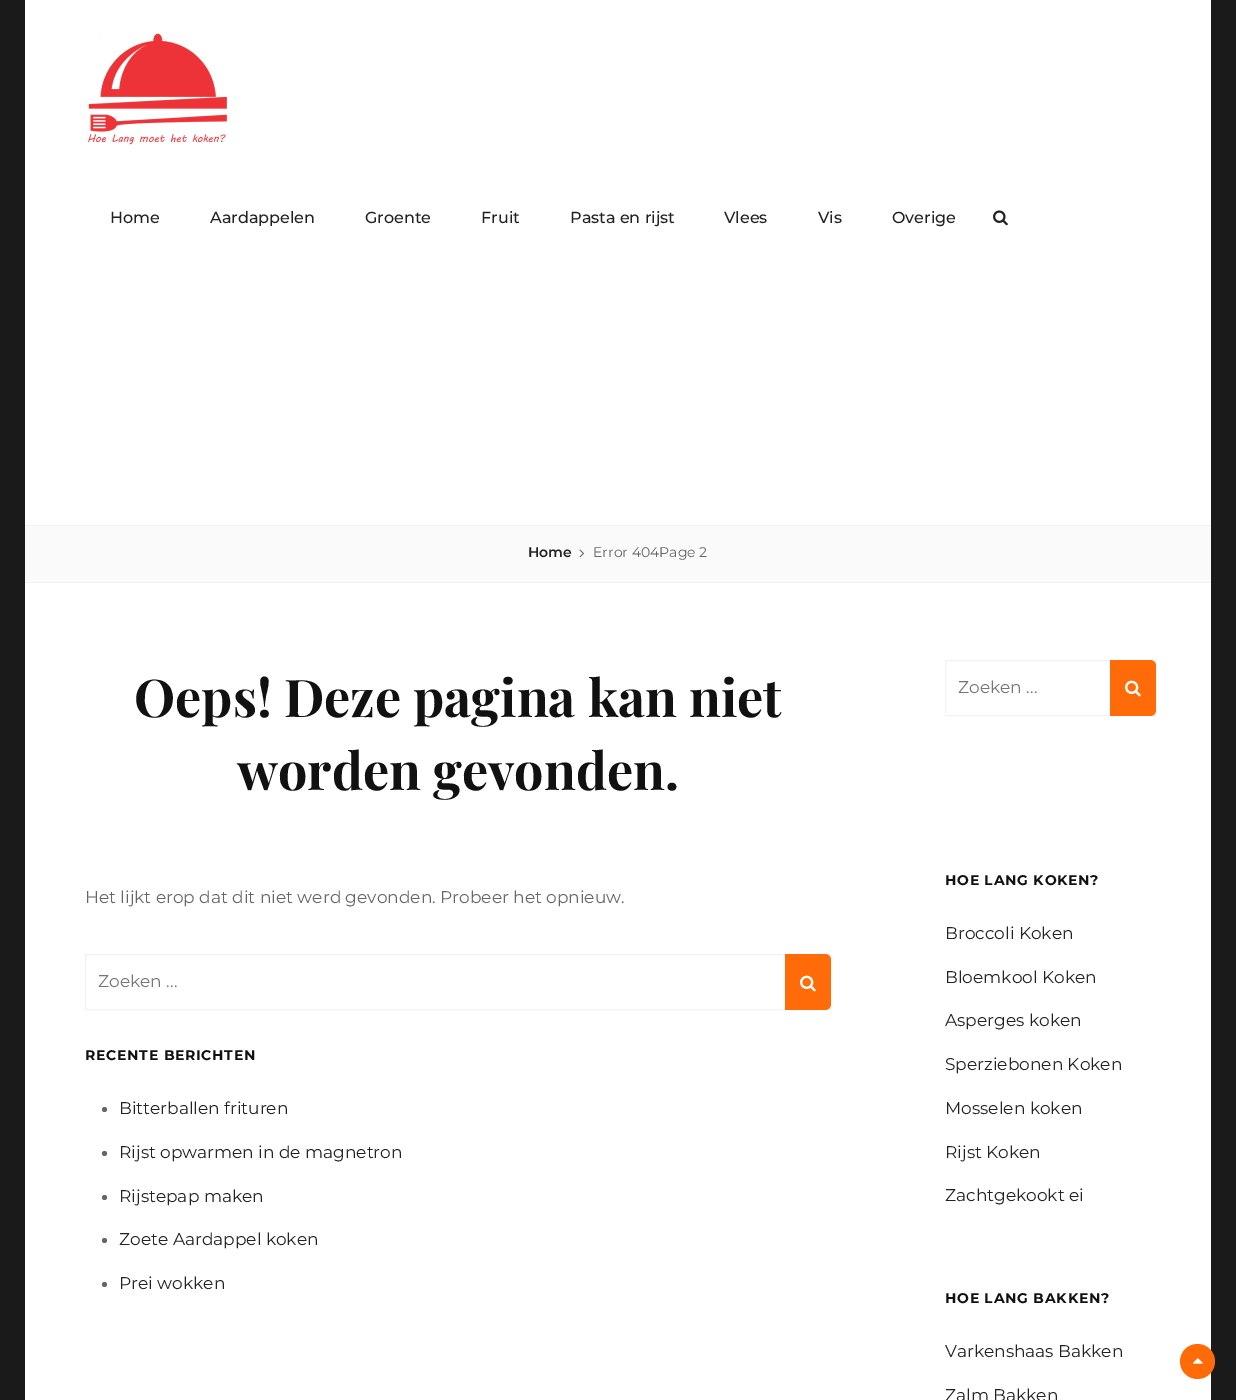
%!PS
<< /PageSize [1236 1400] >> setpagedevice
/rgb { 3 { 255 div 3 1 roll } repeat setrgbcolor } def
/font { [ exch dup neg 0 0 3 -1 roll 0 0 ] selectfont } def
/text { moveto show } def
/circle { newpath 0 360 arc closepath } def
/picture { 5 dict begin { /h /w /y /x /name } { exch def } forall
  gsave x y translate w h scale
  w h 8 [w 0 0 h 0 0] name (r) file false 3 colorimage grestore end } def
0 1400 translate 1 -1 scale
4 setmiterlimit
26 26 26 rgb
0 0 1236 1400 rectfill
255 255 255 rgb
25 0 1186 1400 rectfill
(img_01.rgb) 88 33 139 112 picture
(img_02.rgb) 993 210 15 16 picture
250 250 250 rgb
25 526 1186 56 rectfill
242 242 242 rgb
25 525 1186 1 rectfill
(img_03.rgb) 579 549 5 9 picture
25 582 1186 1 rectfill
85.5 954.5 745 55 rectstroke
255 107 8 rgb
785 954 moveto 40 0 rlineto 3.5 0 6 2.5 6 6 rcurveto 0 44 rlineto 0 3.5 -2.5 6 -6 6 rcurveto -40 0 rlineto closepath fill
(img_04.rgb) 800 975 16 17 picture
102 102 102 rgb
104.5 1109.5 2.5 circle fill
104.5 1153.5 2.5 circle fill
104.5 1197.5 2.5 circle fill
104.5 1240.5 2.5 circle fill
104.5 1284.5 2.5 circle fill
242 242 242 rgb
945.5 660.5 210 55 rectstroke
255 107 8 rgb
1110 660 moveto 40 0 rlineto 3.5 0 6 2.5 6 6 rcurveto 0 44 rlineto 0 3.5 -2.5 6 -6 6 rcurveto -40 0 rlineto closepath fill
(img_04.rgb) 1125 680 16 17 picture
1197.5 1361.5 17.5 circle fill
(img_05.rgb) 1193 1358 10 6 picture
/Montserrat-Medium 16 font
34 34 34 rgb
(Home) 110 223 text
(Aardappelen) 210 223 text
(Groente) 365 223 text
(Fruit) 481 223 text
(Pasta en rijst) 570 223 text
(Vlees) 724 223 text
(Vis) 818 223 text
(Overige) 892 223 text
/Montserrat-SemiBold 14 font
(Home) 528 557 text
/Montserrat-Regular 14 font
102 102 102 rgb
(Error 404Page 2) 593 557 text
/PlayfairDisplay-Bold 52 font
17 17 17 rgb
(Oeps! Deze pagina kan niet) 134 717 text
(worden gevonden.) 237 790 text
/Montserrat-Regular 17 font
102 102 102 rgb
(Het lijkt erop dat dit niet werd gevonden. Probeer het opnieuw.) 85 903 text
117 117 117 rgb
(Zoeken ...) 98 987 text
/Montserrat-Bold 14 font
17 17 17 rgb
85 1060 moveto 0.75 0 (RECENTE BERICHTEN) ashow
/Montserrat-Regular 17 font
34 34 34 rgb
(Bitterballen frituren) 119 1114 text
(Rijst opwarmen in de magnetron) 119 1158 text
(Rijstepap maken) 119 1202 text
(Zoete Aardappel koken) 119 1245 text
(Prei wokken) 119 1289 text
117 117 117 rgb
(Zoeken ...) 958 693 text
/Montserrat-Bold 14 font
17 17 17 rgb
945 885 moveto 0.75 0 (HOE LANG KOKEN?) ashow
/Montserrat-Regular 17 font
34 34 34 rgb
(Broccoli Koken) 945 939 text
(Bloemkool Koken) 945 983 text
(Asperges koken) 945 1026 text
(Sperziebonen Koken) 945 1070 text
(Mosselen koken) 945 1114 text
(Rijst Koken) 945 1158 text
(Zachtgekookt ei) 945 1201 text
/Montserrat-Bold 14 font
17 17 17 rgb
945 1303 moveto 0.75 0 (HOE LANG BAKKEN?) ashow
/Montserrat-Regular 17 font
34 34 34 rgb
(Varkenshaas Bakken) 945 1357 text
(Zalm Bakken) 945 1401 text
showpage
